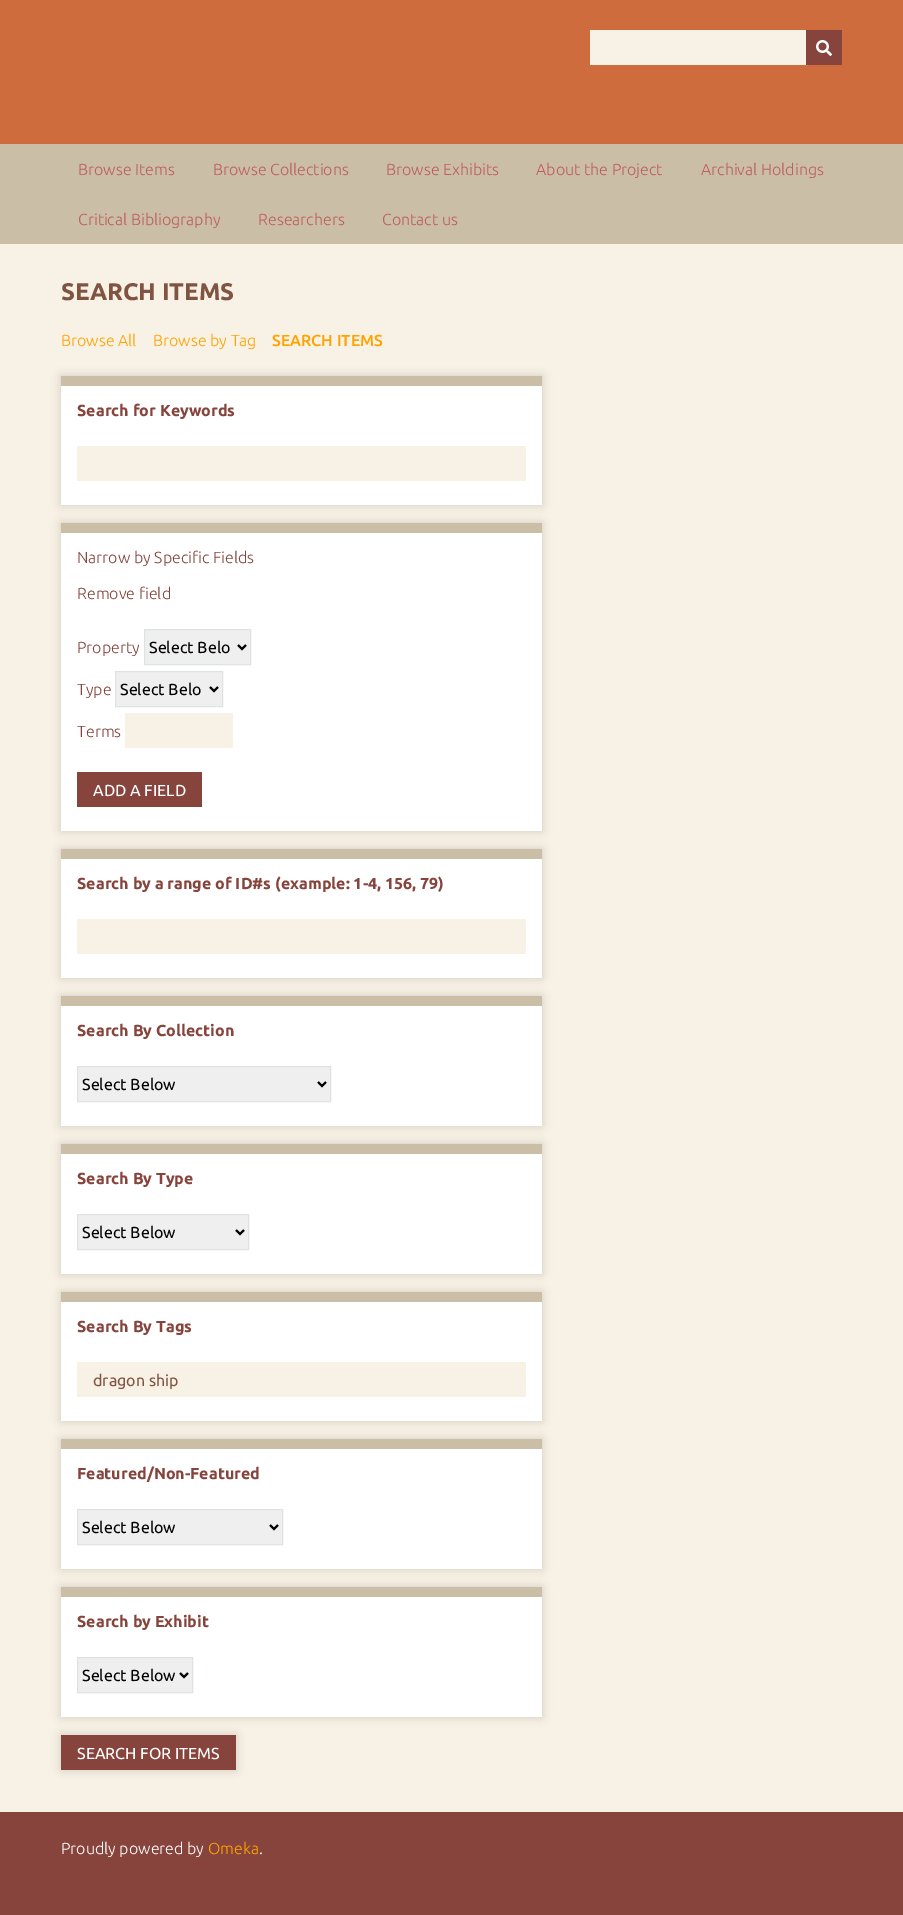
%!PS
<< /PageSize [903 1915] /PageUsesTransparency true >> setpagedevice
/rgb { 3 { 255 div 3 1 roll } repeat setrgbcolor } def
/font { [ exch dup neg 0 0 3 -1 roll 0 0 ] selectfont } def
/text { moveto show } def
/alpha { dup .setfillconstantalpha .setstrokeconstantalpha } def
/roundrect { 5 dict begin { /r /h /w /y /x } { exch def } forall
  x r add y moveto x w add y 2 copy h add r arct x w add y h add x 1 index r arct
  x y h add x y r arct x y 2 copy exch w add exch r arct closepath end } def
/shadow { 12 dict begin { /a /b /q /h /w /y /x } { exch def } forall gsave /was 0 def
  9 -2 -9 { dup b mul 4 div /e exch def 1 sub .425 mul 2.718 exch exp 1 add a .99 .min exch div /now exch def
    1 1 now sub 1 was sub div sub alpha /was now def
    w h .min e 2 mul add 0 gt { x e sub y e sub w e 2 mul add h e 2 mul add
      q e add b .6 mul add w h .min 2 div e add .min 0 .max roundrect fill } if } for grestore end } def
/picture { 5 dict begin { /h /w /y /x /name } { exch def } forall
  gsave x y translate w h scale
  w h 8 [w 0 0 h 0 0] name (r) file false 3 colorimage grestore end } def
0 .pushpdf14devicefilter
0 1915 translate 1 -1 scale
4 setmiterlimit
134 68 60 rgb
0 0 903 1915 rectfill
206 108 62 rgb
0 0 903 144 rectfill
216 137 101 rgb
806 65 1 1 rectfill
248 241 229 rgb
590 30 216 35 rectfill
134 68 60 rgb
806 30 36 35 rectfill
(img_01.rgb) 816 40 16 16 picture
202 191 166 rgb
0 144 903 100 rectfill
248 241 229 rgb
0 244 903 1568 rectfill
0 0 0 rgb
61 376 481 129 0 5 0.15 shadow
255 255 255 rgb
61 386 481 119 rectfill
202 191 166 rgb
61 376 481 10 rectfill
248 241 229 rgb
77 446 449 35 rectfill
0 0 0 rgb
61 523 481 308 0 5 0.15 shadow
255 255 255 rgb
61 533 481 298 rectfill
202 191 166 rgb
61 523 481 10 rectfill
239 239 239 rgb
144.5 629.5 moveto 106 0 rlineto 0 35 rlineto -106 0 rlineto closepath gsave fill grestore
223 226 226 rgb
stroke
0 0 0 rgb
2 setlinewidth
238 645 moveto 4 4 rlineto 4 -4 rlineto stroke
239 239 239 rgb
115.5 671.5 moveto 107 0 rlineto 0 35 rlineto -107 0 rlineto closepath gsave fill grestore
223 226 226 rgb
1 setlinewidth
stroke
0 0 0 rgb
2 setlinewidth
210 687 moveto 4 4 rlineto 4 -4 rlineto stroke
248 241 229 rgb
125 713 108 35 rectfill
134 68 60 rgb
77 772 125 35 rectfill
0 0 0 rgb
61 849 481 129 0 5 0.15 shadow
255 255 255 rgb
61 859 481 119 rectfill
202 191 166 rgb
61 849 481 10 rectfill
248 241 229 rgb
77 919 449 35 rectfill
0 0 0 rgb
61 996 481 130 0 5 0.15 shadow
255 255 255 rgb
61 1006 481 120 rectfill
202 191 166 rgb
61 996 481 10 rectfill
239 239 239 rgb
77.5 1066.5 moveto 253 0 rlineto 0 35 rlineto -253 0 rlineto closepath gsave fill grestore
223 226 226 rgb
1 setlinewidth
stroke
0 0 0 rgb
2 setlinewidth
318 1082 moveto 4 4 rlineto 4 -4 rlineto stroke
61 1144 481 130 0 5 0.15 shadow
255 255 255 rgb
61 1154 481 120 rectfill
202 191 166 rgb
61 1144 481 10 rectfill
239 239 239 rgb
77.5 1214.5 moveto 171 0 rlineto 0 35 rlineto -171 0 rlineto closepath gsave fill grestore
223 226 226 rgb
1 setlinewidth
stroke
0 0 0 rgb
2 setlinewidth
236 1230 moveto 4 4 rlineto 4 -4 rlineto stroke
61 1292 481 129 0 5 0.15 shadow
255 255 255 rgb
61 1302 481 119 rectfill
202 191 166 rgb
61 1292 481 10 rectfill
248 241 229 rgb
77 1362 449 35 rectfill
0 0 0 rgb
61 1439 481 130 0 5 0.15 shadow
255 255 255 rgb
61 1449 481 120 rectfill
202 191 166 rgb
61 1439 481 10 rectfill
239 239 239 rgb
77.5 1509.5 moveto 205 0 rlineto 0 35 rlineto -205 0 rlineto closepath gsave fill grestore
223 226 226 rgb
1 setlinewidth
stroke
0 0 0 rgb
2 setlinewidth
270 1525 moveto 4 4 rlineto 4 -4 rlineto stroke
61 1587 481 130 0 5 0.15 shadow
255 255 255 rgb
61 1597 481 120 rectfill
202 191 166 rgb
61 1587 481 10 rectfill
239 239 239 rgb
77.5 1657.5 moveto 115 0 rlineto 0 35 rlineto -115 0 rlineto closepath gsave fill grestore
223 226 226 rgb
1 setlinewidth
stroke
0 0 0 rgb
2 setlinewidth
180 1673 moveto 4 4 rlineto 4 -4 rlineto stroke
61 1735 175 35 0 5 0.15 shadow
134 68 60 rgb
61 1735 175 35 rectfill
/Ubuntu-Light 16 font
190 94 94 rgb
(Browse Items) 78 175 text
(Browse Collections) 213 175 text
(Browse Exhibits) 386 175 text
(About the Project) 536 175 text
(Archival Holdings) 701 175 text
(Critical Bibliography) 78 225 text
(Researchers) 258 225 text
(Contact us) 382 225 text
/Ubuntu-Bold 24 font
129 84 66 rgb
(SEARCH ITEMS) 61 300 text
/Ubuntu-Light 16 font
255 163 0 rgb
(Browse All) 61 346 text
(Browse by Tag) 153 346 text
/Ubuntu-Medium 16 font
(SEARCH ITEMS) 272 346 text
/Ubuntu-Bold 16 font
134 68 60 rgb
(Search for Keywords) 77 416 text
/Ubuntu-Light 16 font
(Narrow by Specific Fields) 77 563 text
(Remove field) 77 599 text
(Property) 77 653 text
/Ubuntu-Regular 16 font
0 0 0 rgb
(Select Belo) 149 653 text
/Ubuntu-Light 16 font
134 68 60 rgb
(Type) 77 695 text
/Ubuntu-Regular 16 font
0 0 0 rgb
(Select Belo) 120 695 text
/Ubuntu-Light 16 font
134 68 60 rgb
(Terms) 77 737 text
/Ubuntu-Regular 16 font
255 255 255 rgb
(ADD A FIELD) 93 796 text
/Ubuntu-Bold 16 font
134 68 60 rgb
(Search by a range of ID#s \(example: 1-4, 156, 79\)) 77 889 text
(Search By Collection) 77 1036 text
/Ubuntu-Regular 16 font
0 0 0 rgb
(Select Below) 82 1090 text
/Ubuntu-Bold 16 font
134 68 60 rgb
(Search By Type) 77 1184 text
/Ubuntu-Regular 16 font
0 0 0 rgb
(Select Below) 82 1238 text
/Ubuntu-Bold 16 font
134 68 60 rgb
(Search By Tags) 77 1332 text
/Ubuntu-Regular 16 font
129 84 66 rgb
(dragon ship) 93 1386 text
/Ubuntu-Bold 16 font
134 68 60 rgb
(Featured/Non-Featured) 77 1479 text
/Ubuntu-Regular 16 font
0 0 0 rgb
(Select Below) 82 1533 text
/Ubuntu-Bold 16 font
134 68 60 rgb
(Search by Exhibit) 77 1627 text
/Ubuntu-Regular 16 font
0 0 0 rgb
(Select Below) 82 1681 text
255 255 255 rgb
(SEARCH FOR ITEMS) 77 1759 text
/Ubuntu-Light 16 font
(Proudly powered by) 61 1854 text
255 163 0 rgb
(Omeka) 208 1854 text
255 255 255 rgb
(.) 259 1854 text
.poppdf14devicefilter showpage
